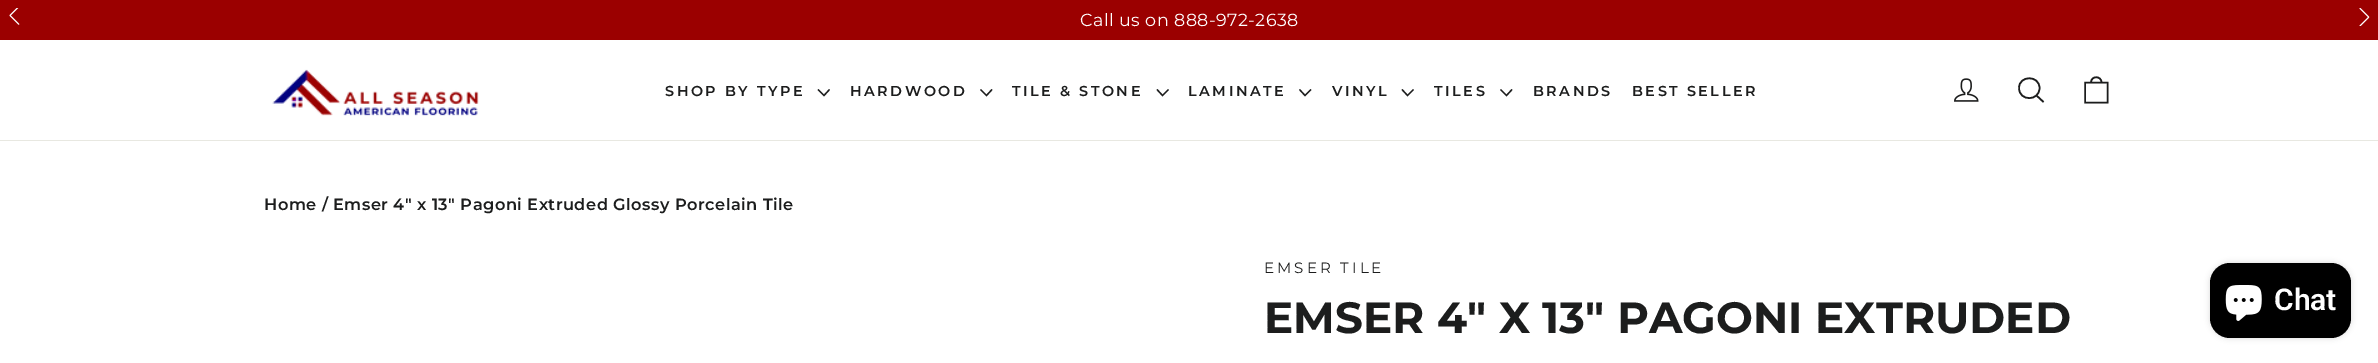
%!PS
<< /PageSize [2378 363] /PageUsesTransparency true >> setpagedevice
/rgb { 3 { 255 div 3 1 roll } repeat setrgbcolor } def
/font { [ exch dup neg 0 0 3 -1 roll 0 0 ] selectfont } def
/text { moveto show } def
/alpha { dup .setfillconstantalpha .setstrokeconstantalpha } def
/roundrect { 5 dict begin { /r /h /w /y /x } { exch def } forall
  x r add y moveto x w add y 2 copy h add r arct x w add y h add x 1 index r arct
  x y h add x y r arct x y 2 copy exch w add exch r arct closepath end } def
/shadow { 12 dict begin { /a /b /q /h /w /y /x } { exch def } forall gsave /was 0 def
  9 -2 -9 { dup b mul 4 div /e exch def 1 sub .425 mul 2.718 exch exp 1 add a .99 .min exch div /now exch def
    1 1 now sub 1 was sub div sub alpha /was now def
    w h .min e 2 mul add 0 gt { x e sub y e sub w e 2 mul add h e 2 mul add
      q e add b .6 mul add w h .min 2 div e add .min 0 .max roundrect fill } if } for grestore end } def
/picture { 5 dict begin { /h /w /y /x /name } { exch def } forall
  gsave x y translate w h scale
  w h 8 [w 0 0 h 0 0] name (r) file false 3 colorimage grestore end } def
0 .pushpdf14devicefilter
0 363 translate 1 -1 scale
4 setmiterlimit
255 255 255 rgb
0 0 2378 363 rectfill
155 0 0 rgb
0 0 2378 40 rectfill
(img_01.rgb) 9 8 11 17 picture
(img_02.rgb) 2359 8 11 18 picture
232 232 225 rgb
0 140 2378 1 rectfill
(img_03.rgb) 272 69 207 47 picture
28 29 29 rgb
1.3 setlinewidth
818 89.5 moveto 6 6 rlineto 5.5 -6 rlineto stroke
980.5 89.5 moveto 6 6 rlineto 5.5 -6 rlineto stroke
1157 89.5 moveto 5.5 6 rlineto 6 -6 rlineto stroke
1299.5 89.5 moveto 5.5 6 rlineto 6 -6 rlineto stroke
1402 89.5 moveto 5.5 6 rlineto 6 -6 rlineto stroke
1500.5 89.5 moveto 6 6 rlineto 5.5 -6 rlineto stroke
(img_04.rgb) 1954 78 25 24 picture
1.6 setlinewidth
2039.5 88 moveto 0 13.5 -20.5 13.5 -20.5 0 rcurveto 0 -13 20.5 -13 20.5 0 rcurveto closepath 2043.5 102 moveto -7 -6.5 rlineto stroke
2085 82.5 moveto 22.5 0 rlineto 0 20 rlineto -22.5 0 rlineto closepath 2091 82.5 moveto 0 -7 10.5 -7 10.5 0 rcurveto stroke
0 0 0 rgb
2210 263 141 75 20 3 0.15 shadow
2210 263 141 75 20 roundrect fill
(img_05.rgb) 2225 285 37 36 picture
/Montserrat-Regular 17.5 font
255 255 255 rgb
1080 26 moveto 0.45 0 (Call us on 888-972-2638) ashow
/Montserrat-SemiBold 14.4 font
28 29 29 rgb
665 96 moveto 2.5 0 (SHOP BY TYPE) ashow
850 96 moveto 2.5 0 (HARDWOOD) ashow
1012 96 moveto 2.5 0 (TILE & STONE) ashow
1188 96 moveto 2.5 0 (LAMINATE) ashow
1332 96 moveto 2.5 0 (VINYL) ashow
1434 96 moveto 2.5 0 (TILES) ashow
1533 96 moveto 2.5 0 (BRANDS) ashow
1632 96 moveto 2.5 0 (BEST SELLER) ashow
/Montserrat-SemiBold 16.25 font
264 210 moveto 0.45 0 (Home / Emser 4" x 13" Pagoni Extruded Glossy Porcelain Tile) ashow
/Montserrat-Regular 15 font
1264 273 moveto 3 0 (EMSER TILE) ashow
/Montserrat-Bold 43.75 font
(EMSER 4" X 13" PAGONI EXTRUDED) 1264 333 text
/Roboto-SemiBold 30 font
255 255 255 rgb
(Chat) 2274 310 text
.poppdf14devicefilter showpage
